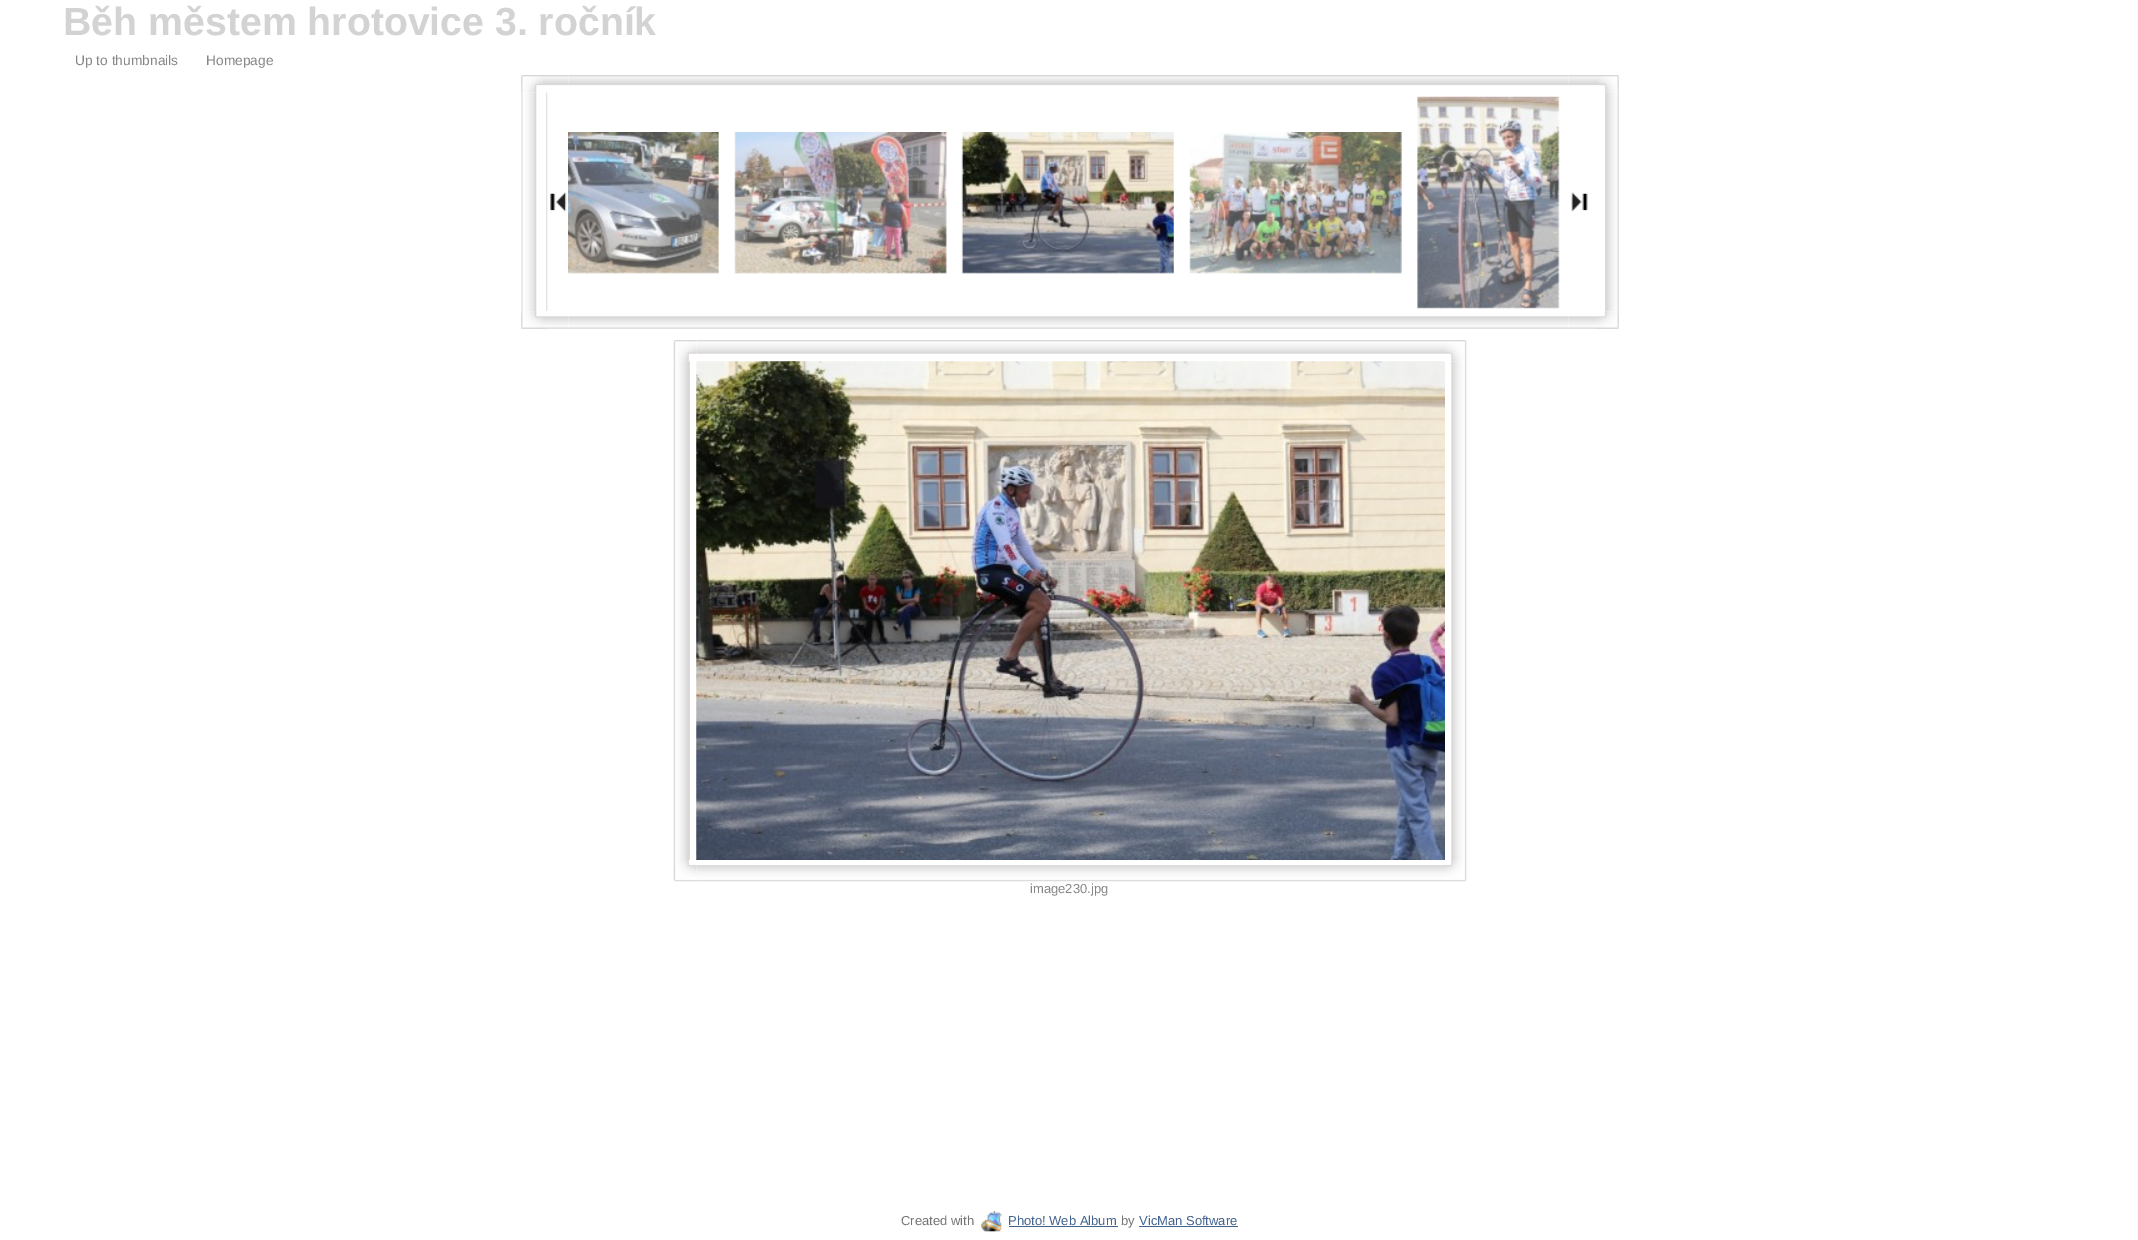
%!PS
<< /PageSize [2138 1240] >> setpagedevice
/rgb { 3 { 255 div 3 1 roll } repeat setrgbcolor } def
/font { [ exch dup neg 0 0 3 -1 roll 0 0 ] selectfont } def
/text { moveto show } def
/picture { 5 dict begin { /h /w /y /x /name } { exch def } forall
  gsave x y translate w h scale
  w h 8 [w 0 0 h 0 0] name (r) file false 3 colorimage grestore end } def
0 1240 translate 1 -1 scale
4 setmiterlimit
255 255 255 rgb
0 0 2138 1240 rectfill
(img_01.rgb) 521 75 48 11 picture
(img_06.rgb) 521 92 27 220 picture
(img_02.rgb) 521 75 22 18 picture
(img_03.rgb) 569 75 1000 11 picture
(img_04.rgb) 1569 75 50 11 picture
(img_13.rgb) 1605 92 14 220 picture
(img_05.rgb) 1599 75 20 18 picture
(img_07.rgb) 550 192 17 20 picture
(img_08.rgb) 568 132 151 142 picture
(img_09.rgb) 734 132 213 142 picture
(img_10.rgb) 961 132 213 142 picture
(img_11.rgb) 1189 132 213 142 picture
(img_12.rgb) 1417 96 143 213 picture
(img_14.rgb) 1571 192 17 20 picture
(img_15.rgb) 521 311 48 18 picture
(img_16.rgb) 521 311 25 18 picture
(img_17.rgb) 569 316 1000 13 picture
(img_18.rgb) 1569 311 50 18 picture
(img_19.rgb) 1595 311 24 18 picture
(img_23.rgb) 673 361 17 499 picture
(img_20.rgb) 673 340 23 22 picture
(img_21.rgb) 696 340 749 14 picture
(img_22.rgb) 1445 340 22 21 picture
(img_24.rgb) 696 361 749 499 picture
(img_25.rgb) 1451 361 16 499 picture
(img_26.rgb) 673 860 23 22 picture
(img_27.rgb) 696 865 749 17 picture
(img_28.rgb) 1445 860 22 22 picture
(img_29.rgb) 981 1211 21 21 picture
67 99 142 rgb
1009 1226 109 1 rectfill
1139 1226 99 1 rectfill
/LiberationSans-Bold 39.25 font
211 211 211 rgb
(Běh městem hrotovice 3. ročník) 63 35 text
/LiberationSans-Regular 13.75 font
134 134 134 rgb
(Up to thumbnails) 75 65 text
(Homepage) 206 65 text
/LiberationSans-Regular 13 font
(image230.jpg) 1030 893 text
116 116 116 rgb
(Created with) 901 1225 text
67 99 142 rgb
(Photo! Web Album) 1008 1225 text
116 116 116 rgb
(by) 1121 1225 text
67 99 142 rgb
(VicMan Software) 1139 1225 text
showpage
